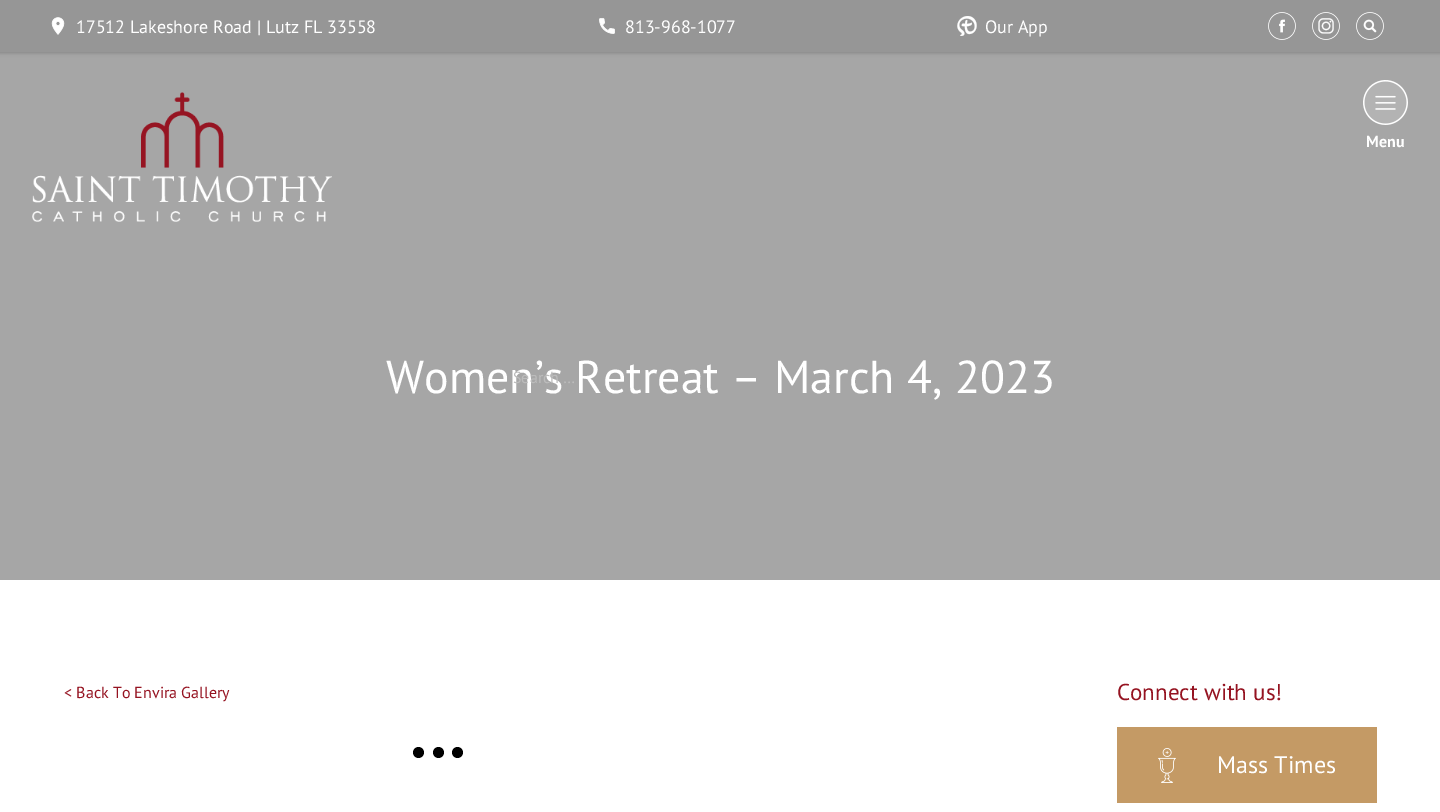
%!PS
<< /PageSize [1440 812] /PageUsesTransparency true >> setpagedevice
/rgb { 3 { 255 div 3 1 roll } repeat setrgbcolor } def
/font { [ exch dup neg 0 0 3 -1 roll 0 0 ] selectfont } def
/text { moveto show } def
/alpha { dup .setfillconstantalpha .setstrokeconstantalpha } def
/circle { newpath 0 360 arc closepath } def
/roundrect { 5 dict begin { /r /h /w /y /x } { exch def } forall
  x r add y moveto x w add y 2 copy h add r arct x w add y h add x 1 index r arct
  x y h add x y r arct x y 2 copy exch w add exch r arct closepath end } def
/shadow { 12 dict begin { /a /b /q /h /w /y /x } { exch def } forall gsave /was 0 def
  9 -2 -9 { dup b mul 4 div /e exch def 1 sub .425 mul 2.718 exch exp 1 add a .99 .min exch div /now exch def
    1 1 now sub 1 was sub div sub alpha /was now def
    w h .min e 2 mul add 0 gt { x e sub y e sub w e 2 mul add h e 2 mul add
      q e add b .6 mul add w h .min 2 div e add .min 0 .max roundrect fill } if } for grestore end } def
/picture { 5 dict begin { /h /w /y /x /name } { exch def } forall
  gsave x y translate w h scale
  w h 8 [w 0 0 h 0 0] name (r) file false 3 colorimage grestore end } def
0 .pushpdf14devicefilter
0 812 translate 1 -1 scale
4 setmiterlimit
255 255 255 rgb
0 0 1440 812 rectfill
166 166 166 rgb
0 52 1440 528 rectfill
0 0 0 rgb
-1 -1 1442 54 0 2 0.2 shadow
150 150 150 rgb
0 0 1440 52 rectfill
(img_01.rgb) 51 17 14 18 picture
(img_02.rgb) 599 18 16 16 picture
(img_03.rgb) 957 16 20 20 picture
(img_04.rgb) 1268 12 28 28 picture
(img_05.rgb) 1312 12 28 28 picture
(img_06.rgb) 1356 12 28 28 picture
(img_07.rgb) 32 92 300 130 picture
(img_08.rgb) 1363 80 45 45 picture
0 0 0 rgb
418.5 752.5 5.5 circle fill
438.5 752.5 5.5 circle fill
457.5 752.5 5.5 circle fill
196 154 101 rgb
1117 727 260 76 rectfill
(img_09.rgb) 1158 748 18 35 picture
/PTSans-Regular 18 font
255 255 255 rgb
(17512 Lakeshore Road | Lutz FL 33558) 76 33 text
(813-968-1077) 625 33 text
(Our App) 985 33 text
/PTSans-Bold 16 font
(Menu) 1366 147 text
/PTSans-Regular 46 font
(Women’s Retreat – March 4, 2023) 386 393 text
/PTSans-Regular 16 font
188 188 188 rgb
(Search …) 513 383 text
149 19 33 rgb
(< Back To Envira Gallery) 64 698 text
/PTSans-Regular 23 font
(Connect with us!) 1117 700 text
/PTSans-Regular 24 font
255 255 255 rgb
(Mass Times) 1217 773 text
.poppdf14devicefilter showpage
